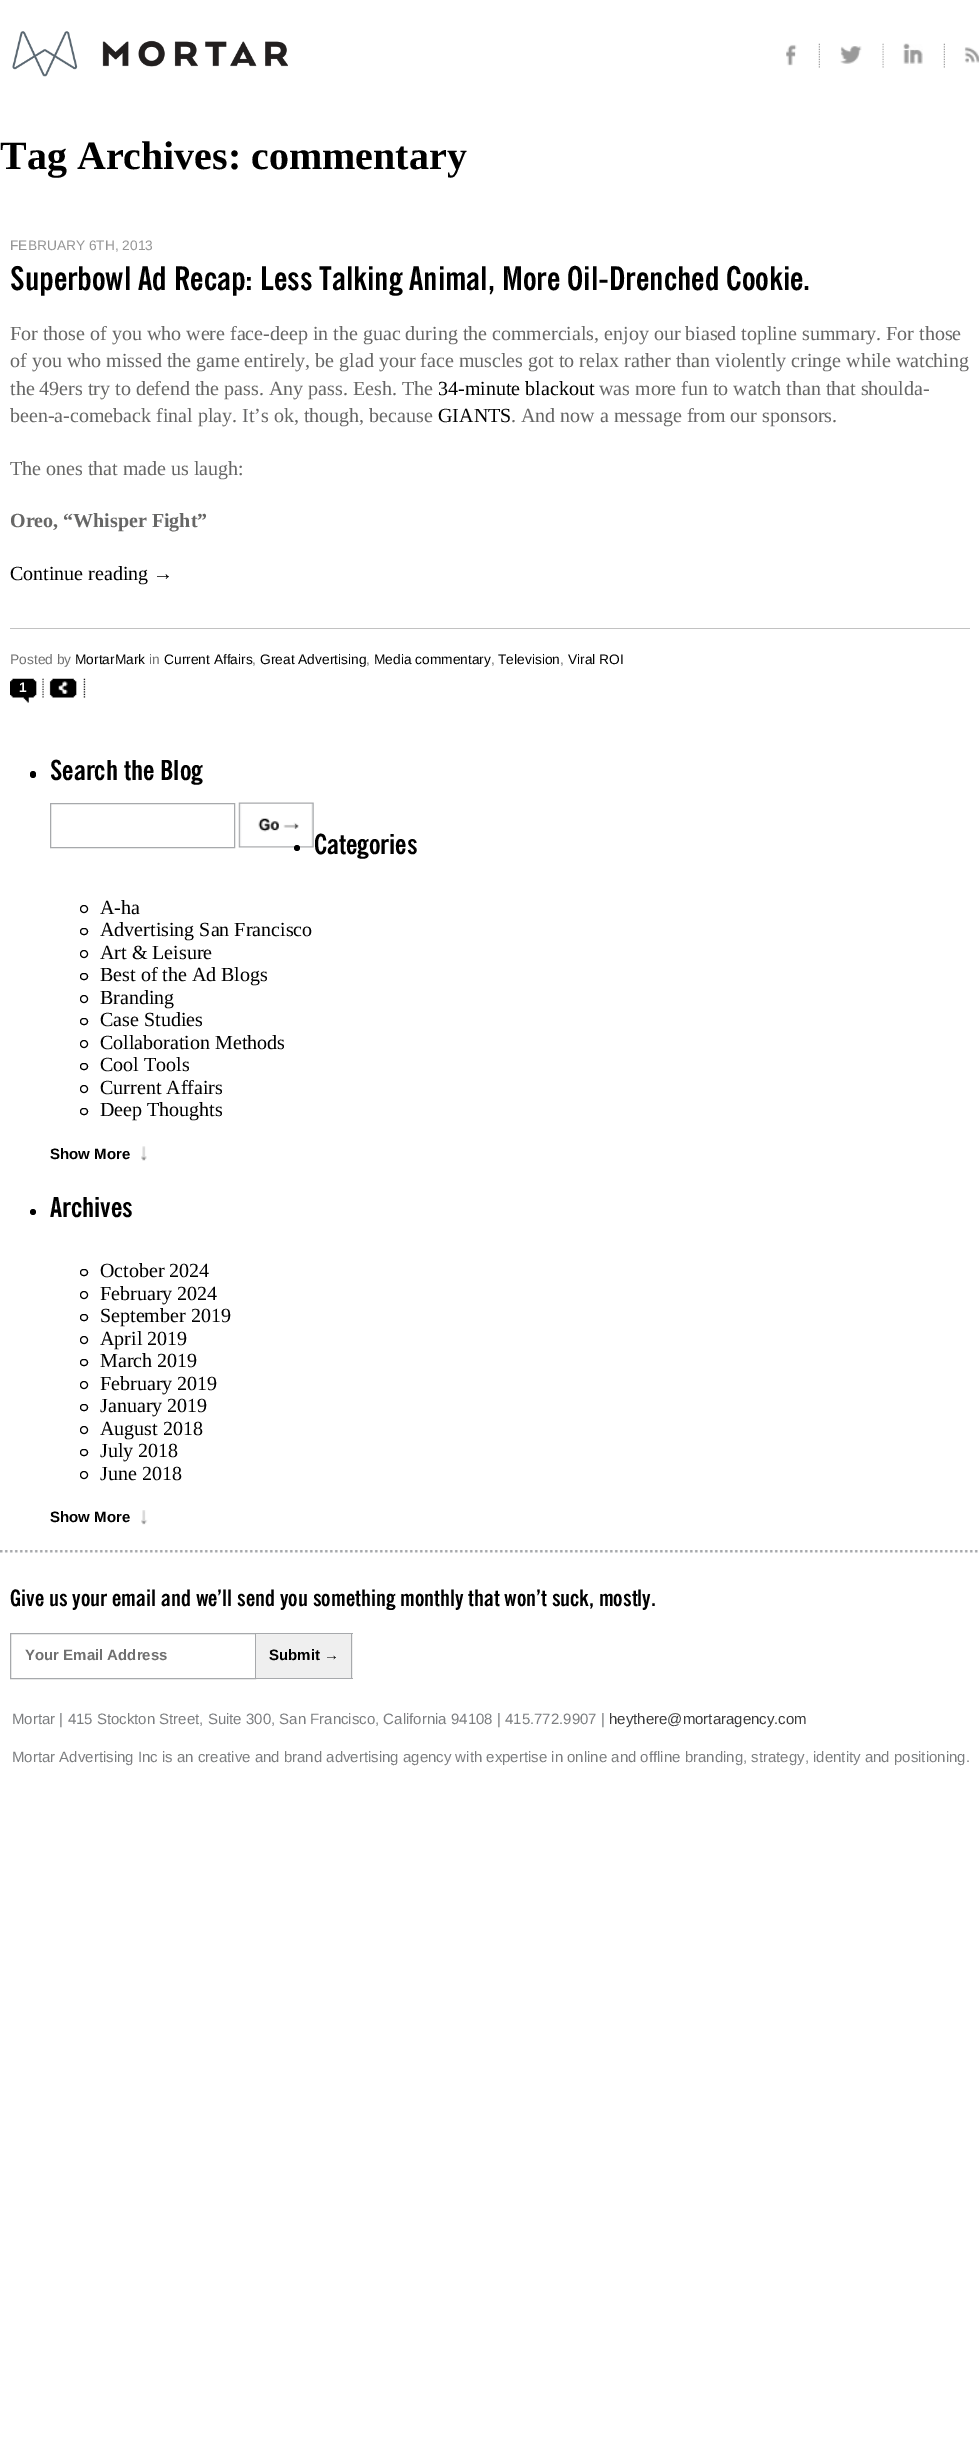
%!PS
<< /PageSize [979 2443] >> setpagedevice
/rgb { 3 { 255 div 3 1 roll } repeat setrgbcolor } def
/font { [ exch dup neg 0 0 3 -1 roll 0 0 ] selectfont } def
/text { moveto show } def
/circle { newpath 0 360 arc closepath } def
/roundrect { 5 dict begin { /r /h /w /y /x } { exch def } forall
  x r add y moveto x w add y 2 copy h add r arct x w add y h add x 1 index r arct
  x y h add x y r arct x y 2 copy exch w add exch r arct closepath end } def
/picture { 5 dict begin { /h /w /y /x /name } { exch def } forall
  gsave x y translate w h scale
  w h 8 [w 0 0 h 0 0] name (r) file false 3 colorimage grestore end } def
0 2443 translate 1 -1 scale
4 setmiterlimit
255 255 255 rgb
0 0 979 2443 rectfill
(img_01.rgb) 12 31 276 46 picture
(img_02.rgb) 786 43 34 25 picture
(img_03.rgb) 840 43 44 25 picture
(img_04.rgb) 883 43 62 25 picture
(img_05.rgb) 964 47 15 16 picture
194 194 194 rgb
10 628 960 1 rectfill
(img_06.rgb) 10 678 34 25 picture
(img_07.rgb) 43 678 43 20 picture
0 0 0 rgb
30 771 6 7 3 roundrect fill
167 169 172 rgb
50.5 803.5 184 44 rectstroke
(img_08.rgb) 238 802 76 46 picture
0 0 0 rgb
297 848 3 circle fill
84 909 3.5 circle stroke
80.5 928.5 7 6 3 roundrect stroke
84 954 3.5 circle stroke
80.5 973.5 7 6 3 roundrect stroke
84 999 3.5 circle stroke
80.5 1018.5 7 6 3 roundrect stroke
84 1044 3.5 circle stroke
80.5 1063.5 7 6 3 roundrect stroke
84 1089 3.5 circle stroke
80.5 1108.5 7 6 3 roundrect stroke
(img_09.rgb) 141 1146 6 15 picture
33 1212 3 circle fill
80.5 1269.5 7 6 3 roundrect stroke
84 1295 3.5 circle stroke
80.5 1314.5 7 6 3 roundrect stroke
84 1340 3.5 circle stroke
80.5 1359.5 7 6 3 roundrect stroke
84 1385 3.5 circle stroke
80.5 1404.5 7 6 3 roundrect stroke
84 1430 3.5 circle stroke
80.5 1449.5 7 6 3 roundrect stroke
84 1475 3.5 circle stroke
(img_10.rgb) 141 1510 7 15 picture
(img_11.rgb) 0 1550 978 3 picture
167 169 172 rgb
10.5 1633.5 245 45 rectstroke
239 239 239 rgb
256 1634 97 44 rectfill
167 169 172 rgb
256 1633 97 1 rectfill
351 1633 1 46 rectfill
256 1678 97 1 rectfill
/LiberationSerif-Bold 40 font
0 0 0 rgb
(Tag Archives: commentary) 0 169 text
/LiberationSans-Regular 13.75 font
149 149 149 rgb
(FEBRUARY 6TH, 2013) 10 250 text
/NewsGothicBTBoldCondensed-Bold 32.5 font
0 0 0 rgb
(Superbowl Ad Recap: Less Talking Animal, More Oil-Drenched Cookie.) 10 290 text
/LiberationSerif-Regular 20 font
103 103 102 rgb
(For those of you who were face-deep in the guac during the commercials, enjoy our biased topline summary. For those) 10 340 text
(of you who missed the game entirely, be glad your face muscles got to relax rather than violently cringe while watching) 10 367 text
(the 49ers try to defend the pass. Any pass. Eesh. The) 10 395 text
0 0 0 rgb
(34-minute blackout) 438 395 text
103 103 102 rgb
(was more fun to watch than that shoulda-) 599 395 text
(been-a-comeback final play. It’s ok, though, because) 10 422 text
0 0 0 rgb
(GIANTS) 438 422 text
103 103 102 rgb
(. And now a message from our sponsors.) 511 422 text
(The ones that made us laugh:) 10 475 text
/LiberationSerif-Bold 20 font
(Oreo, “Whisper Fight”) 10 527 text
/LiberationSerif-Regular 20 font
0 0 0 rgb
(Continue reading →) 10 580 text
/LiberationSans-Regular 13.75 font
112 112 112 rgb
(Posted by) 10 664 text
0 0 0 rgb
(MortarMark) 75 664 text
112 112 112 rgb
(in) 149 664 text
0 0 0 rgb
(Current Affairs) 164 664 text
112 112 112 rgb
(,) 252 664 text
0 0 0 rgb
(Great Advertising) 260 664 text
112 112 112 rgb
(,) 366 664 text
0 0 0 rgb
(Media commentary) 374 664 text
112 112 112 rgb
(,) 491 664 text
0 0 0 rgb
(Television) 498 664 text
112 112 112 rgb
(,) 560 664 text
0 0 0 rgb
(Viral ROI) 568 664 text
/LiberationSans-Bold 13.75 font
255 255 255 rgb
(1) 19 692 text
/NewsGothicBTBoldCondensed-Bold 27.5 font
0 0 0 rgb
(Search the Blog) 50 780 text
(Categories) 314 854 text
/LiberationSerif-Regular 20 font
(A-ha) 100 914 text
(Advertising San Francisco) 100 936 text
(Art & Leisure) 100 959 text
(Best of the Ad Blogs) 100 981 text
(Branding) 100 1004 text
(Case Studies) 100 1026 text
(Collaboration Methods) 100 1049 text
(Cool Tools) 100 1071 text
(Current Affairs) 100 1094 text
(Deep Thoughts) 100 1116 text
/LiberationSans-Bold 15 font
(Show More) 50 1159 text
/NewsGothicBTBoldCondensed-Bold 27.5 font
(Archives) 50 1217 text
/LiberationSerif-Regular 20 font
(October 2024) 100 1277 text
(February 2024) 100 1300 text
(September 2019) 100 1322 text
(April 2019) 100 1345 text
(March 2019) 100 1367 text
(February 2019) 100 1390 text
(January 2019) 100 1412 text
(August 2018) 100 1435 text
(July 2018) 100 1457 text
(June 2018) 100 1480 text
/LiberationSans-Bold 15 font
(Show More) 50 1522 text
/NewsGothicBTBoldCondensed-Bold 22.5 font
(Give us your email and we’ll send you something monthly that won’t suck, mostly.) 10 1606 text
/LiberationSans-Bold 15 font
112 112 112 rgb
(Your Email Address) 25 1660 text
0 0 0 rgb
(Submit →) 269 1660 text
/LiberationSans-Regular 15 font
124 126 128 rgb
(Mortar | 415 Stockton Street, Suite 300, San Francisco, California 94108 | 415.772.9907 |) 12 1724 text
59 59 60 rgb
(heythere@mortaragency.com) 609 1724 text
124 126 128 rgb
(Mortar Advertising Inc is an creative and brand advertising agency with expertise in online and offline branding, strategy, identity and positioning.) 12 1762 text
showpage
